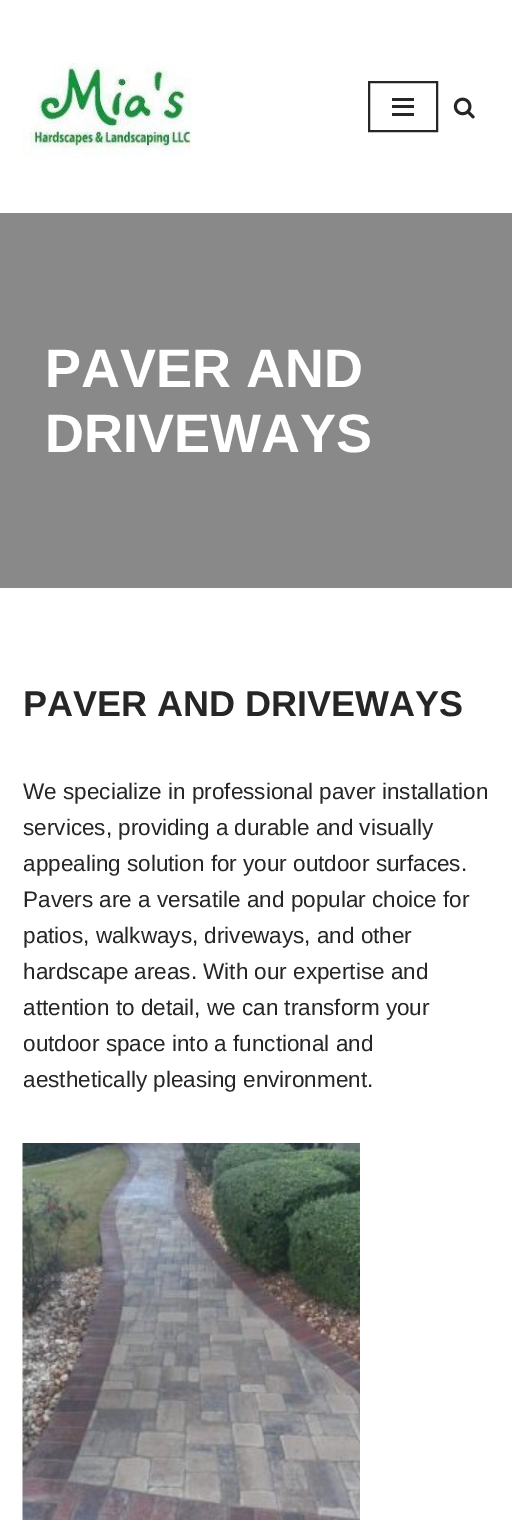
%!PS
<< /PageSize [512 1520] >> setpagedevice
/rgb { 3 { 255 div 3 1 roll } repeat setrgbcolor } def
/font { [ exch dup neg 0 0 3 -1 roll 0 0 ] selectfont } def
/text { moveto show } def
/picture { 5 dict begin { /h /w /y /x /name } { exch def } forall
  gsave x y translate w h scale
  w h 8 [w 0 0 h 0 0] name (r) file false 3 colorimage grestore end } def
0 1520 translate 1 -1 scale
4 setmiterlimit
255 255 255 rgb
0 0 512 1520 rectfill
137 137 137 rgb
0 213 512 375 rectfill
(img_01.rgb) 22 63 170 95 picture
39 38 38 rgb
2 setlinewidth
369 82 68 49 rectstroke
392 98 22 3 rectfill
392 105 22 3 rectfill
392 113 22 3 rectfill
(img_02.rgb) 453 97 22 22 picture
(img_03.rgb) 22 1143 338 377 picture
/LiberationSans-Bold 54 font
255 255 255 rgb
(PAVER AND) 45 387 text
(DRIVEWAYS) 45 452 text
/LiberationSans-Bold 36 font
39 38 38 rgb
(PAVER AND DRIVEWAYS) 23 716 text
/LiberationSans-Regular 22.5 font
(We specialize in professional paver installation) 23 799 text
(services, providing a durable and visually) 23 835 text
(appealing solution for your outdoor surfaces.) 23 871 text
(Pavers are a versatile and popular choice for) 23 907 text
(patios, walkways, driveways, and other) 23 943 text
(hardscape areas. With our expertise and) 23 979 text
(attention to detail, we can transform your) 23 1015 text
(outdoor space into a functional and) 23 1051 text
(aesthetically pleasing environment.) 23 1087 text
showpage
